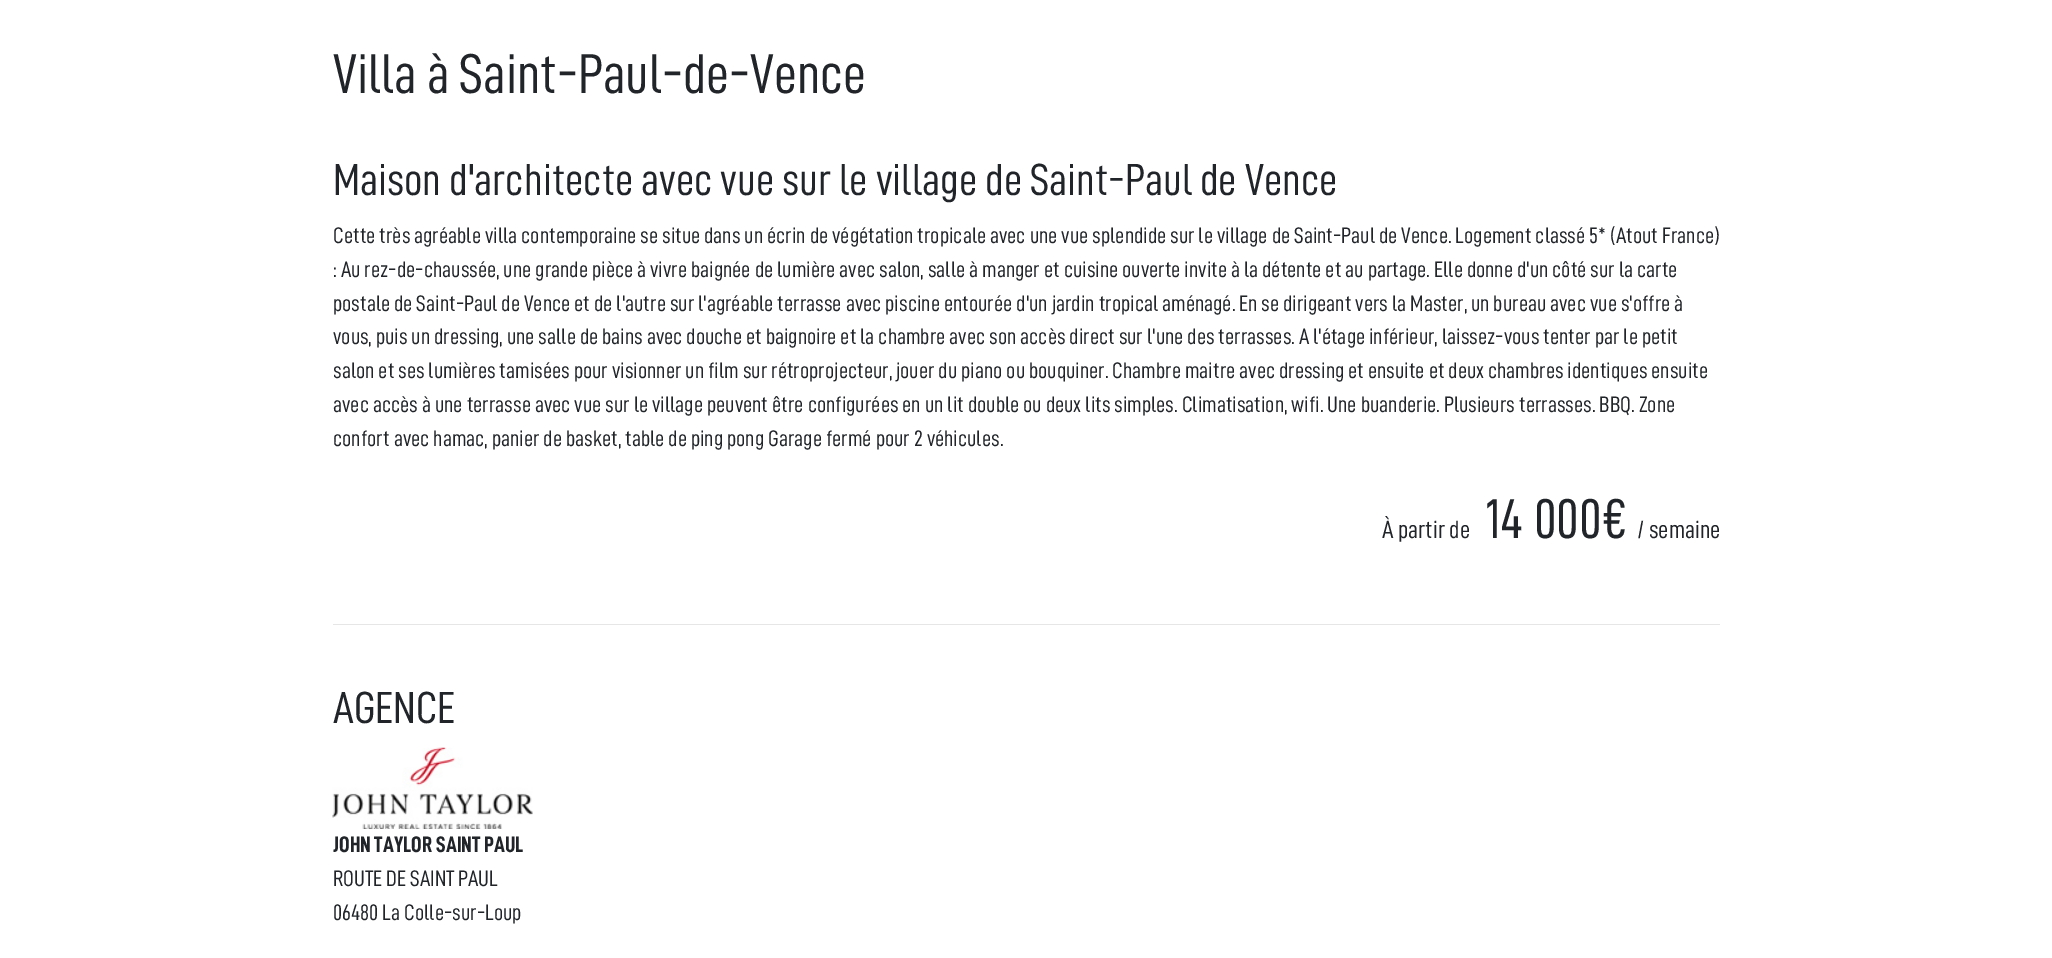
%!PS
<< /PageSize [2052 958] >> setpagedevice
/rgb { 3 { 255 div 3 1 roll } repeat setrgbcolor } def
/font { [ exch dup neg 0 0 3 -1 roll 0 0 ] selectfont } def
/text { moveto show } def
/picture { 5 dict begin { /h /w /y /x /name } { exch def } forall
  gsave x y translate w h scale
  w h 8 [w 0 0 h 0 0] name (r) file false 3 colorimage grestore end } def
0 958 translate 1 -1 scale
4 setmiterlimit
255 255 255 rgb
0 0 2052 958 rectfill
230 230 230 rgb
333 624 1387 1 rectfill
(img_01.rgb) 332 747 201 82 picture
/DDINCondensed-Regular 56.25 font
33 37 41 rgb
(Villa à Saint-Paul-de-Vence) 333 93 text
/DDINCondensed-Regular 45 font
(Maison d'architecte avec vue sur le village de Saint-Paul de Vence) 333 195 text
/DDINCondensed-Regular 22.5 font
(Cette très agréable villa contemporaine se situe dans un écrin de végétation tropicale avec une vue splendide sur le village de Saint-Paul de Vence. Logement classé 5* \(Atout France\)) 333 243 text
(: Au rez-de-chaussée, une grande pièce à vivre baignée de lumière avec salon, salle à manger et cuisine ouverte invite à la détente et au partage. Elle donne d'un côté sur la carte) 333 277 text
(postale de Saint-Paul de Vence et de l'autre sur l'agréable terrasse avec piscine entourée d'un jardin tropical aménagé. En se dirigeant vers la Master, un bureau avec vue s'offre à) 333 311 text
(vous, puis un dressing, une salle de bains avec douche et baignoire et la chambre avec son accès direct sur l'une des terrasses. A l'étage inférieur, laissez-vous tenter par le petit) 333 344 text
(salon et ses lumières tamisées pour visionner un film sur rétroprojecteur, jouer du piano ou bouquiner. Chambre maitre avec dressing et ensuite et deux chambres identiques ensuite) 333 378 text
(avec accès à une terrasse avec vue sur le village peuvent être configurées en un lit double ou deux lits simples. Climatisation, wifi. Une buanderie. Plusieurs terrasses. BBQ. Zone) 333 412 text
(confort avec hamac, panier de basket, table de ping pong Garage fermé pour 2 véhicules.) 333 446 text
/DDINCondensed-Regular 25 font
(À partir de) 1382 538 text
/DDINCondensed-Regular 56.25 font
(14 000€) 1485 538 text
/DDINCondensed-Regular 25 font
(/ semaine) 1637 538 text
/DDINCondensed-Regular 45 font
(AGENCE) 333 723 text
/DDINCondensed-Bold 22.5 font
(JOHN TAYLOR SAINT PAUL) 333 852 text
/DDINCondensed-Regular 22.5 font
(ROUTE DE SAINT PAUL) 333 886 text
(06480 La Colle-sur-Loup) 333 920 text
showpage
